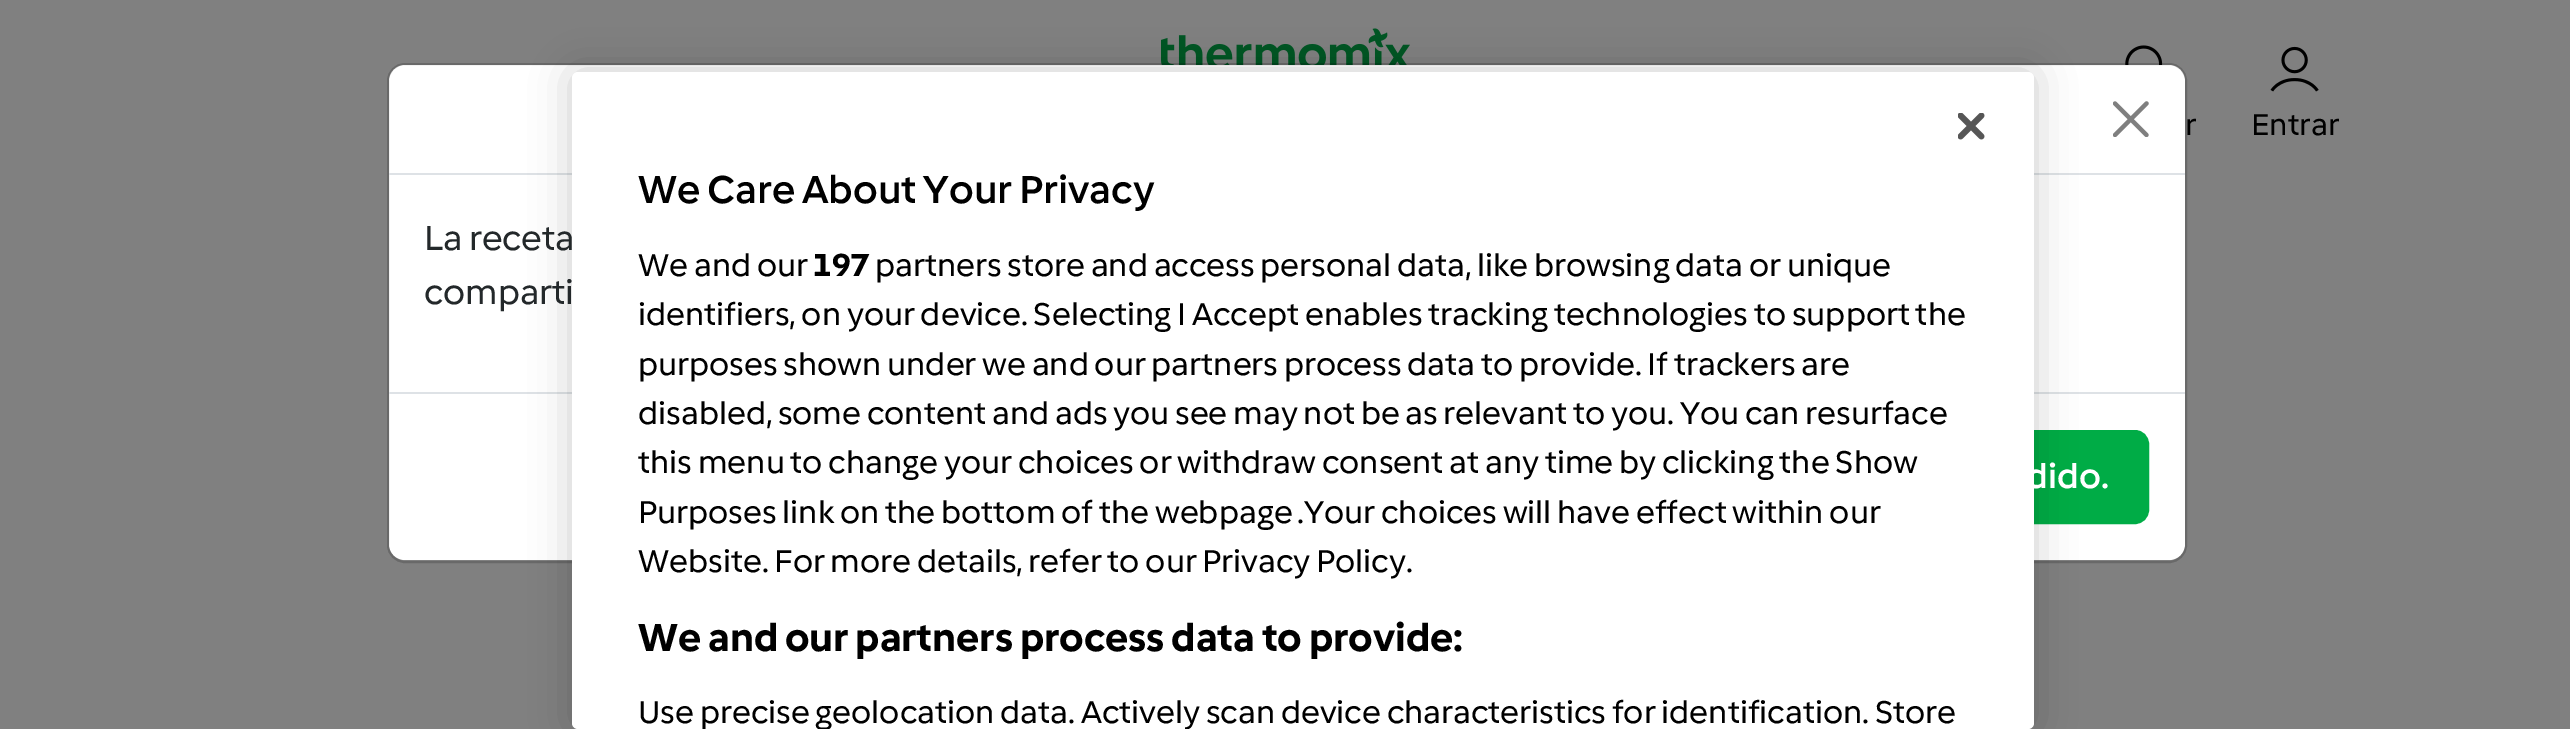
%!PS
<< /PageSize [2570 729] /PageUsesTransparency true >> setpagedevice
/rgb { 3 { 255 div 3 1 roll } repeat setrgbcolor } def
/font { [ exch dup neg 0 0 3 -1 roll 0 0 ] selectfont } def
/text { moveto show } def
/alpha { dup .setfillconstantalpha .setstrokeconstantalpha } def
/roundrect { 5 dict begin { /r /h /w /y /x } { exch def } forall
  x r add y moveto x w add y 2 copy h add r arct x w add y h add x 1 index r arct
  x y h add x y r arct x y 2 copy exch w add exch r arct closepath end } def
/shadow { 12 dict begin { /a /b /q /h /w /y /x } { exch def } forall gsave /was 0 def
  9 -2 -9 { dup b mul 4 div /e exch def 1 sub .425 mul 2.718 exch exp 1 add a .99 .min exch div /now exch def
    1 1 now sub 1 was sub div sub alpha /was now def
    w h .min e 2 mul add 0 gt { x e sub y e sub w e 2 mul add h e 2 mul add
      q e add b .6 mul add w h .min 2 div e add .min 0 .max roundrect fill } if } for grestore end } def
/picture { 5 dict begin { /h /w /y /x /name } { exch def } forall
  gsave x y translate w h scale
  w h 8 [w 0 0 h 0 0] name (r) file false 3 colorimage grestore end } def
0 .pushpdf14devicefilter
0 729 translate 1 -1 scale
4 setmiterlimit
128 128 128 rgb
0 0 2570 729 rectfill
(img_01.rgb) 1161 28 249 37 picture
(img_02.rgb) 2125 45 38 20 picture
(img_03.rgb) 2270 46 49 46 picture
255 255 255 rgb
389 65 1796 495 16 roundrect fill
0.18 alpha
0 0 0 rgb
2 setlinewidth
388 64 1798 498 17 roundrect stroke
1 alpha
222 226 230 rgb
389 173 1796 2 rectfill
389 392 1796 2 rectfill
0 172 70 rgb
1806 431 342 92 13 roundrect gsave fill grestore
stroke
0 0 0 rgb
572 72 1462 657 6 20 0.2 shadow
(img_05.rgb) 2113 101 36 36 picture
/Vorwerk-Regular 31.5 font
(r) 2185 135 text
(Entrar) 2251 135 text
/Vorwerk-Regular 36 font
35 40 42 rgb
(La receta) 424 250 text
255 255 255 rgb
572 72 1462 657 6 roundrect fill
(img_04.rgb) 1958 113 27 27 picture
/Vorwerk-Regular 32.95 font
0 0 0 rgb
(Use precise geolocation data. Actively scan device characteristics for identification. Store) 638 723 text
/Vorwerk-Bold 40.5 font
(We and our partners process data to provide:) 638 651 text
/Vorwerk-Regular 32.95 font
(Website. For more details, refer to our Privacy Policy.) 638 572 text
(.Your choices will have effect within our) 1297 523 text
(Purposes link on the bottom of the webpage) 638 523 text
(this menu to change your choices or withdraw consent at any time by clicking the Show) 638 473 text
(disabled, some content and ads you see may not be as relevant to you. You can resurface) 638 424 text
(purposes shown under we and our partners process data to provide. If trackers are) 638 375 text
(identifiers, on your device. Selecting I Accept enables tracking technologies to support the) 638 325 text
(partners store and access personal data, like browsing data or unique) 875 276 text
/Vorwerk-Bold 32.95 font
(197) 813 276 text
/Vorwerk-Regular 32.95 font
(We and our) 638 276 text
/Vorwerk-Medium 40.5 font
(We Care About Your Privacy) 638 203 text
/Vorwerk-Regular 36 font
35 40 42 rgb
(comparti) 424 304 text
/Vorwerk-Medium 36 font
255 255 255 rgb
(dido.) 2026 488 text
.poppdf14devicefilter showpage
